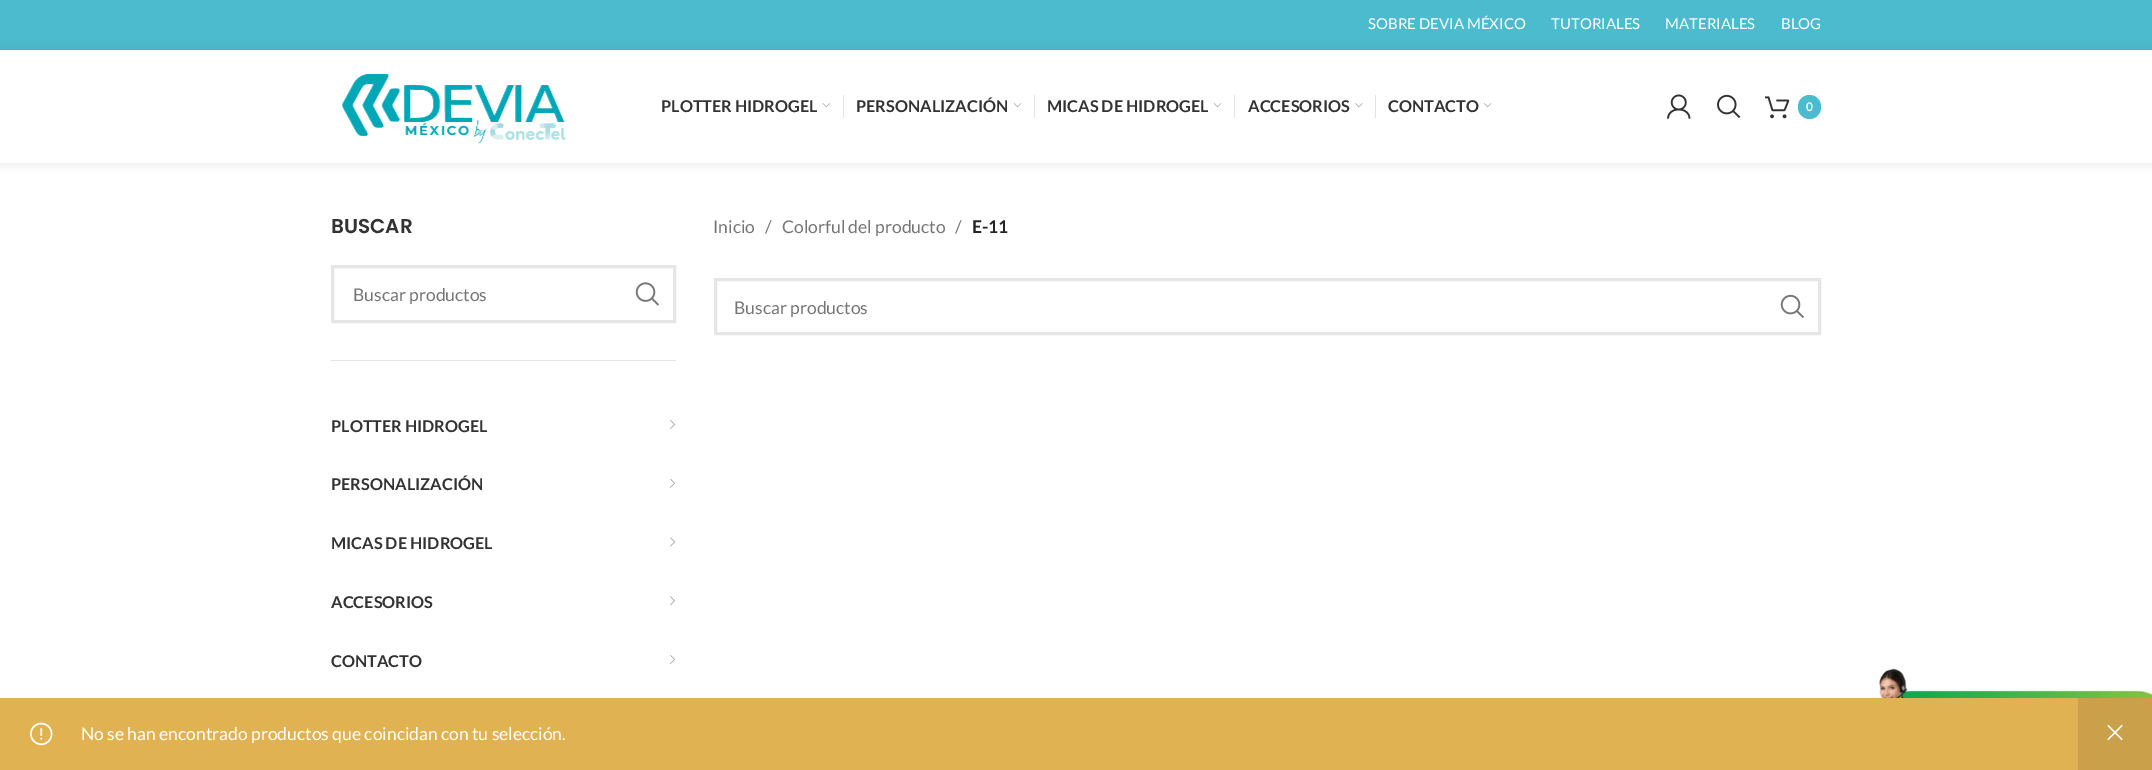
%!PS
<< /PageSize [2152 770] /PageUsesTransparency true >> setpagedevice
/rgb { 3 { 255 div 3 1 roll } repeat setrgbcolor } def
/font { [ exch dup neg 0 0 3 -1 roll 0 0 ] selectfont } def
/text { moveto show } def
/alpha { dup .setfillconstantalpha .setstrokeconstantalpha } def
/roundrect { 5 dict begin { /r /h /w /y /x } { exch def } forall
  x r add y moveto x w add y 2 copy h add r arct x w add y h add x 1 index r arct
  x y h add x y r arct x y 2 copy exch w add exch r arct closepath end } def
/shadow { 12 dict begin { /a /b /q /h /w /y /x } { exch def } forall gsave /was 0 def
  9 -2 -9 { dup b mul 4 div /e exch def 1 sub .425 mul 2.718 exch exp 1 add a .99 .min exch div /now exch def
    1 1 now sub 1 was sub div sub alpha /was now def
    w h .min e 2 mul add 0 gt { x e sub y e sub w e 2 mul add h e 2 mul add
      q e add b .6 mul add w h .min 2 div e add .min 0 .max roundrect fill } if } for grestore end } def
/picture { 5 dict begin { /h /w /y /x /name } { exch def } forall
  gsave x y translate w h scale
  w h 8 [w 0 0 h 0 0] name (r) file false 3 colorimage grestore end } def
0 .pushpdf14devicefilter
0 770 translate 1 -1 scale
4 setmiterlimit
255 255 255 rgb
0 0 2152 770 rectfill
75 187 205 rgb
0 0 2152 50 rectfill
0 0 0 rgb
0 51 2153 113 0 5 0.1 shadow
255 255 255 rgb
0 50 2152 113 rectfill
(img_01.rgb) 342 73 225 71 picture
(img_02.rgb) 822 103 8 5 picture
228 228 228 rgb
843 95 1 23 rectfill
(img_03.rgb) 1013 103 9 5 picture
1034 95 1 23 rectfill
(img_03.rgb) 1213 103 9 5 picture
1234 95 1 23 rectfill
(img_04.rgb) 1355 103 8 5 picture
1375 95 1 23 rectfill
(img_03.rgb) 1483 103 9 5 picture
(img_05.rgb) 1667 94 24 25 picture
(img_06.rgb) 1717 94 24 24 picture
(img_07.rgb) 1765 96 25 23 picture
75 187 205 rgb
1798 95 23 24 11.5 roundrect fill
228 228 228 rgb
331 360 345 1 rectfill
230 230 230 rgb
3 setlinewidth
332.5 266.5 342 55 rectstroke
(img_08.rgb) 635 282 24 24 picture
(img_09.rgb) 670 420 5 9 picture
(img_10.rgb) 670 478 5 10 picture
(img_11.rgb) 670 537 5 10 picture
(img_12.rgb) 670 596 5 10 picture
(img_09.rgb) 670 655 5 9 picture
715.5 279.5 1104 54 rectstroke
(img_13.rgb) 1780 294 24 25 picture
224 178 82 rgb
0 698 2078 72 rectfill
(img_14.rgb) 30 722 23 24 picture
202 160 74 rgb
2078 698 74 72 rectfill
(img_15.rgb) 2107 724 16 17 picture
(img_16.rgb) 1879 668 273 30 picture
/Lato-Regular 15 font
255 255 255 rgb
(SOBRE DEVIA MÉXICO) 1368 29 text
(TUTORIALES) 1551 29 text
(MATERIALES) 1665 29 text
(BLOG) 1781 29 text
/Lato-Bold 16.25 font
51 51 51 rgb
(PLOTTER HIDROGEL) 661 112 text
(PERSONALIZACIÓN) 856 112 text
(MICAS DE HIDROGEL) 1047 112 text
(ACCESORIOS) 1248 112 text
(CONTACTO) 1388 112 text
/Lato-Bold 12 font
255 255 255 rgb
(0) 1806 111 text
/Poppins-SemiBold 20 font
51 51 51 rgb
(BUSCAR) 331 233 text
/Lato-Regular 17.5 font
118 118 118 rgb
(Buscar productos) 353 301 text
/Lato-Bold 16.25 font
51 51 51 rgb
(PLOTTER HIDROGEL) 331 432 text
(PERSONALIZACIÓN) 331 490 text
(MICAS DE HIDROGEL) 331 549 text
(ACCESORIOS) 331 608 text
(CONTACTO) 331 667 text
/Lato-Regular 17.5 font
118 118 118 rgb
(Inicio) 713 233 text
(/) 765 233 text
(Colorful del producto) 782 233 text
(/) 955 233 text
/Lato-Bold 17.5 font
36 36 36 rgb
(E-11) 972 233 text
/Lato-Regular 17.5 font
118 118 118 rgb
(Buscar productos) 734 314 text
255 255 255 rgb
(No se han encontrado productos que coincidan con tu selección.) 81 740 text
.poppdf14devicefilter showpage
